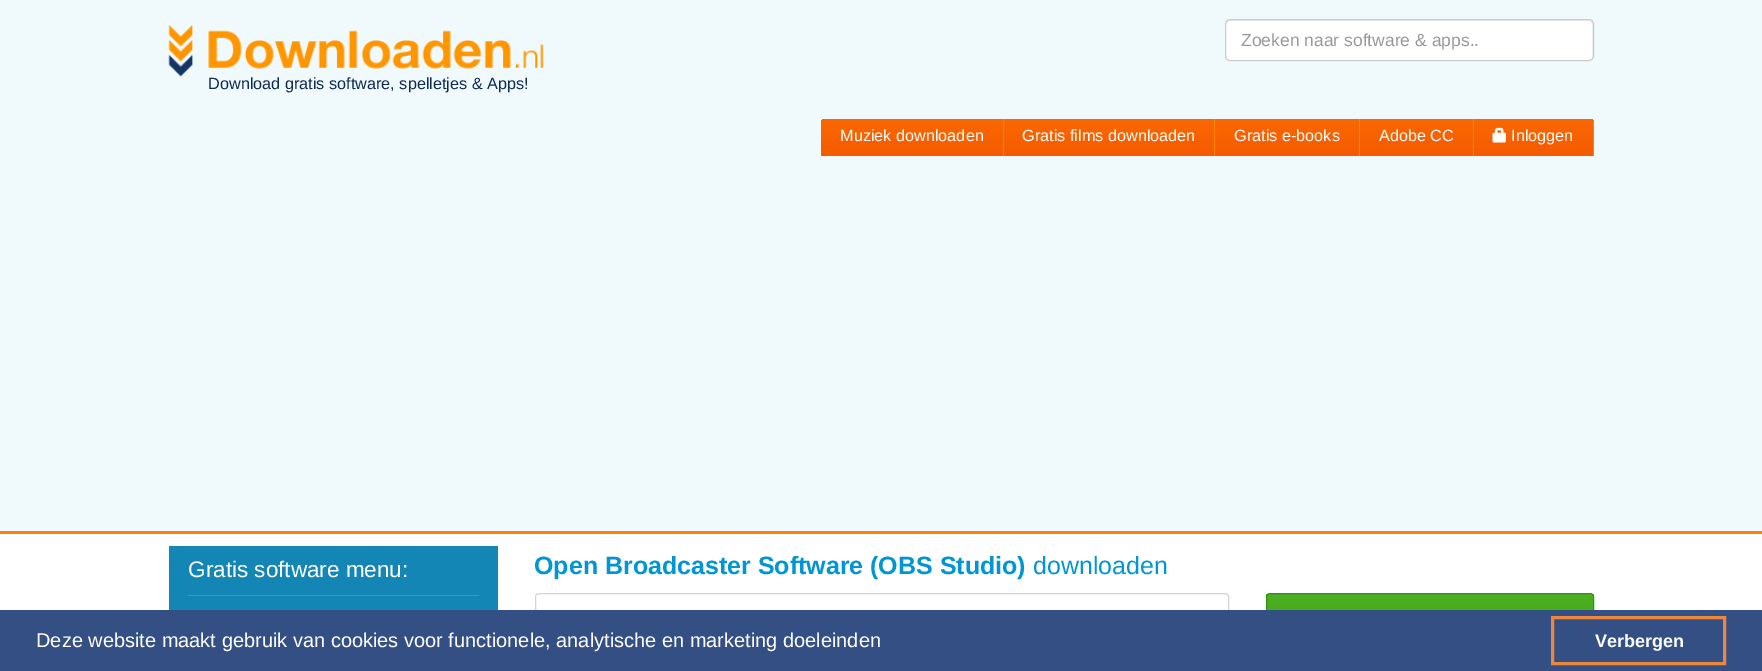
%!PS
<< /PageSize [1762 671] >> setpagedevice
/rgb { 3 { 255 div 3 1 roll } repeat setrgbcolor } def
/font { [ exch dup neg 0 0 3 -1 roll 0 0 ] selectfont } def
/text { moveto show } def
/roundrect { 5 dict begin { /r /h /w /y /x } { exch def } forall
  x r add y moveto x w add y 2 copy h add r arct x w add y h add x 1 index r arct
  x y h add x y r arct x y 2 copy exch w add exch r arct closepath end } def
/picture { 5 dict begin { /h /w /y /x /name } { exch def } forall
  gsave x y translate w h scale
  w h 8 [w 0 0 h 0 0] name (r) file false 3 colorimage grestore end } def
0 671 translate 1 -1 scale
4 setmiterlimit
255 255 255 rgb
0 0 1762 671 rectfill
240 250 253 rgb
0 0 1762 531 rectfill
255 131 0 rgb
0 531 1762 3 rectfill
255 255 255 rgb
1225 19 369 42 5 roundrect fill
236 236 236 rgb
1230 21 moveto 359 0 rlineto 2 0 3 2 3 4 rcurveto 0 34 rlineto 1 -1 1 -2 1 -3 rcurveto 0 -32 rlineto 0 -2 -2 -4 -4 -4 rcurveto -359 0 rlineto -2 0 -4 2 -4 4 rcurveto 0 1 rlineto 0 -2 2 -4 4 -4 rcurveto closepath fill
204 204 204 rgb
1225.5 19.5 368 41 4.5 roundrect stroke
(img_01.rgb) 168 25 376 52 picture
gsave 825 119 moveto 179 0 rlineto 0 37 rlineto -183 0 rlineto 0 -33 rlineto 0 -2 2 -4 4 -4 rcurveto closepath clip newpath
<< /ShadingType 2 /ColorSpace /DeviceRGB /Coords [912 119 912 156] /Extend [true true] /Function << /FunctionType 2 /Domain [0 1] /C0 [0.98 0.408 0] /C1 [0.961 0.353 0] /N 1 >> >> shfill grestore
255 135 0 rgb
1003 119 1 37 rectfill
gsave 1004 119 moveto 210 0 rlineto 0 37 rlineto -210 0 rlineto closepath clip newpath
<< /ShadingType 2 /ColorSpace /DeviceRGB /Coords [1109 119 1109 156] /Extend [true true] /Function << /FunctionType 2 /Domain [0 1] /C0 [0.98 0.408 0] /C1 [0.961 0.353 0] /N 1 >> >> shfill grestore
1214 119 1 37 rectfill
gsave 1215 119 moveto 144 0 rlineto 0 37 rlineto -144 0 rlineto closepath clip newpath
<< /ShadingType 2 /ColorSpace /DeviceRGB /Coords [1287 119 1287 156] /Extend [true true] /Function << /FunctionType 2 /Domain [0 1] /C0 [0.98 0.408 0] /C1 [0.961 0.353 0] /N 1 >> >> shfill grestore
1359 119 1 37 rectfill
gsave 1360 119 moveto 113 0 rlineto 0 37 rlineto -113 0 rlineto closepath clip newpath
<< /ShadingType 2 /ColorSpace /DeviceRGB /Coords [1416 119 1416 156] /Extend [true true] /Function << /FunctionType 2 /Domain [0 1] /C0 [0.98 0.408 0] /C1 [0.961 0.353 0] /N 1 >> >> shfill grestore
1473 119 1 37 rectfill
gsave 1474 119 moveto 116 0 rlineto 2 0 4 2 4 4 rcurveto 0 33 rlineto -120 0 rlineto closepath clip newpath
<< /ShadingType 2 /ColorSpace /DeviceRGB /Coords [1533 119 1533 156] /Extend [true true] /Function << /FunctionType 2 /Domain [0 1] /C0 [0.98 0.408 0] /C1 [0.961 0.353 0] /N 1 >> >> shfill grestore
1593 121 1 35 rectfill
(img_02.rgb) 1492 127 14 16 picture
20 134 181 rgb
169 546 329 64 rectfill
55 152 192 rgb
188 595 291 1 rectfill
211 211 211 rgb
535.5 593.5 693 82 3.5 roundrect stroke
gsave
1266 593 328 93 4 roundrect clip newpath
gsave 1266 594 moveto 328 0 rlineto 0 16 rlineto -328 0 rlineto closepath clip newpath
<< /ShadingType 2 /ColorSpace /DeviceRGB /Coords [1430 594 1430 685] /Extend [true true] /Function << /FunctionType 2 /Domain [0 1] /C0 [0.298 0.69 0.129] /C1 [0.208 0.608 0.078] /N 1 >> >> shfill grestore
grestore
52 144 20 rgb
1266.5 593.5 327 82 3.5 roundrect stroke
52 79 131 rgb
0 610 1762 61 rectfill
237 135 62 rgb
3 setlinewidth
1552.5 617.5 172 46 rectstroke
/LiberationSans-Regular 17.5 font
153 153 153 rgb
(Zoeken naar software & apps..) 1241 46 text
/LiberationSans-Regular 16.25 font
16 42 82 rgb
(Download gratis software, spelletjes & Apps!) 208 89 text
255 255 255 rgb
(Muziek downloaden) 840 141 text
(Gratis films downloaden) 1022 141 text
(Gratis e-books) 1234 141 text
(Adobe CC) 1379 141 text
(Inloggen) 1511 141 text
/LiberationSans-Regular 22.5 font
(Gratis software menu:) 188 577 text
/LiberationSans-Bold 25 font
0 149 212 rgb
(Open Broadcaster Software \(OBS Studio\)) 534 574 text
/LiberationSans-Regular 25 font
(downloaden) 1033 574 text
/LiberationSans-Regular 20 font
255 255 255 rgb
(Deze website maakt gebruik van cookies voor functionele, analytische en marketing doeleinden) 36 647 text
/LiberationSans-Bold 18 font
(Verbergen) 1595 647 text
showpage
